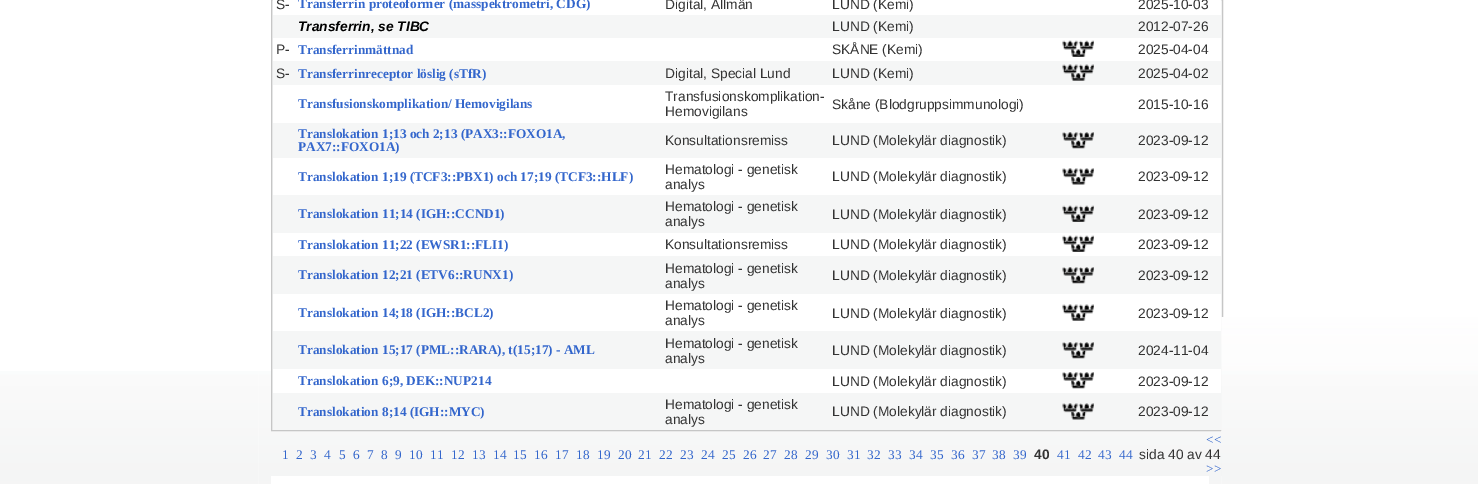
%!PS
<< /PageSize [1478 484] >> setpagedevice
/rgb { 3 { 255 div 3 1 roll } repeat setrgbcolor } def
/font { [ exch dup neg 0 0 3 -1 roll 0 0 ] selectfont } def
/text { moveto show } def
/picture { 5 dict begin { /h /w /y /x /name } { exch def } forall
  gsave x y translate w h scale
  w h 8 [w 0 0 h 0 0] name (r) file false 3 colorimage grestore end } def
0 484 translate 1 -1 scale
4 setmiterlimit
255 255 255 rgb
0 0 1478 484 rectfill
(img_01.rgb) 259 371 962 113 picture
271 476 938 8 rectfill
241 242 242 rgb
271.5 -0.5 moveto 951 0 rlineto 0 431 rlineto -951 0 rlineto closepath gsave fill grestore
198 198 198 rgb
stroke
255 255 255 rgb
273 0 948 15 rectfill
245 246 246 rgb
273 15 948 23 rectfill
255 255 255 rgb
273 38 948 23 rectfill
(img_02.rgb) 1062 40 32 17 picture
245 246 246 rgb
273 61 948 24 rectfill
(img_03.rgb) 1062 64 32 17 picture
255 255 255 rgb
273 85 948 38 rectfill
245 246 246 rgb
273 123 948 35 rectfill
(img_04.rgb) 1062 132 32 17 picture
255 255 255 rgb
273 158 948 37 rectfill
(img_05.rgb) 1062 168 32 17 picture
245 246 246 rgb
273 195 948 38 rectfill
(img_06.rgb) 1062 205 32 17 picture
255 255 255 rgb
273 233 948 23 rectfill
(img_02.rgb) 1062 235 32 17 picture
245 246 246 rgb
273 256 948 38 rectfill
(img_04.rgb) 1062 267 32 17 picture
255 255 255 rgb
273 294 948 37 rectfill
(img_07.rgb) 1062 304 32 17 picture
245 246 246 rgb
273 331 948 38 rectfill
(img_04.rgb) 1062 342 32 17 picture
255 255 255 rgb
273 369 948 24 rectfill
(img_08.rgb) 1062 372 32 17 picture
245 246 246 rgb
273 393 948 37 rectfill
(img_09.rgb) 1062 403 32 17 picture
1221 431 1 45 rectfill
(img_10.rgb) 0 371 259 113 picture
(img_11.rgb) 1221 317 257 167 picture
/LiberationSans-Regular 13.75 font
51 51 51 rgb
(S-) 276 9 text
/LiberationSerif-Bold 13.3 font
51 102 204 rgb
(Transferrin proteoformer \(masspektrometri, CDG\)) 298 8 text
/LiberationSans-Regular 13.75 font
51 51 51 rgb
(Digital, Allmän) 665 9 text
(LUND \(Kemi\)) 832 9 text
(2025-10-03) 1138 9 text
/LiberationSans-BoldItalic 13.75 font
0 0 0 rgb
(Transferrin, se TIBC) 298 31 text
/LiberationSans-Regular 13.75 font
51 51 51 rgb
(LUND \(Kemi\)) 832 31 text
(2012-07-26) 1138 31 text
(P-) 276 54 text
/LiberationSerif-Bold 13.3 font
51 102 204 rgb
(Transferrinmättnad) 298 54 text
/LiberationSans-Regular 13.75 font
51 51 51 rgb
(SKÅNE \(Kemi\)) 832 54 text
(2025-04-04) 1138 54 text
(S-) 276 78 text
/LiberationSerif-Bold 13.3 font
51 102 204 rgb
(Transferrinreceptor löslig \(sTfR\)) 298 78 text
/LiberationSans-Regular 13.75 font
51 51 51 rgb
(Digital, Special Lund) 665 78 text
(LUND \(Kemi\)) 832 78 text
(2025-04-02) 1138 78 text
/LiberationSerif-Bold 13.3 font
51 102 204 rgb
(Transfusionskomplikation/ Hemovigilans) 298 108 text
/LiberationSans-Regular 13.75 font
51 51 51 rgb
(Transfusionskomplikation-) 665 101 text
(Hemovigilans) 665 116 text
(Skåne \(Blodgruppsimmunologi\)) 832 109 text
(2015-10-16) 1138 109 text
/LiberationSerif-Bold 13.3 font
51 102 204 rgb
(Translokation 1;13 och 2;13 \(PAX3::FOXO1A,) 298 138 text
(PAX7::FOXO1A\)) 298 151 text
/LiberationSans-Regular 13.75 font
51 51 51 rgb
(Konsultationsremiss) 665 145 text
(LUND \(Molekylär diagnostik\)) 832 145 text
(2023-09-12) 1138 145 text
/LiberationSerif-Bold 13.3 font
51 102 204 rgb
(Translokation 1;19 \(TCF3::PBX1\) och 17;19 \(TCF3::HLF\)) 298 181 text
/LiberationSans-Regular 13.75 font
51 51 51 rgb
(Hematologi - genetisk) 665 174 text
(analys) 665 189 text
(LUND \(Molekylär diagnostik\)) 832 181 text
(2023-09-12) 1138 181 text
/LiberationSerif-Bold 13.3 font
51 102 204 rgb
(Translokation 11;14 \(IGH::CCND1\)) 298 218 text
/LiberationSans-Regular 13.75 font
51 51 51 rgb
(Hematologi - genetisk) 665 211 text
(analys) 665 226 text
(LUND \(Molekylär diagnostik\)) 832 219 text
(2023-09-12) 1138 219 text
/LiberationSerif-Bold 13.3 font
51 102 204 rgb
(Translokation 11;22 \(EWSR1::FLI1\)) 298 249 text
/LiberationSans-Regular 13.75 font
51 51 51 rgb
(Konsultationsremiss) 665 249 text
(LUND \(Molekylär diagnostik\)) 832 249 text
(2023-09-12) 1138 249 text
/LiberationSerif-Bold 13.3 font
51 102 204 rgb
(Translokation 12;21 \(ETV6::RUNX1\)) 298 279 text
/LiberationSans-Regular 13.75 font
51 51 51 rgb
(Hematologi - genetisk) 665 273 text
(analys) 665 288 text
(LUND \(Molekylär diagnostik\)) 832 280 text
(2023-09-12) 1138 280 text
/LiberationSerif-Bold 13.3 font
51 102 204 rgb
(Translokation 14;18 \(IGH::BCL2\)) 298 317 text
/LiberationSans-Regular 13.75 font
51 51 51 rgb
(Hematologi - genetisk) 665 310 text
(analys) 665 325 text
(LUND \(Molekylär diagnostik\)) 832 318 text
(2023-09-12) 1138 318 text
/LiberationSerif-Bold 13.3 font
51 102 204 rgb
(Translokation 15;17 \(PML::RARA\), t\(15;17\) - AML) 298 354 text
/LiberationSans-Regular 13.75 font
51 51 51 rgb
(Hematologi - genetisk) 665 348 text
(analys) 665 363 text
(LUND \(Molekylär diagnostik\)) 832 355 text
(2024-11-04) 1138 355 text
/LiberationSerif-Bold 13.3 font
51 102 204 rgb
(Translokation 6;9, DEK::NUP214) 298 385 text
/LiberationSans-Regular 13.75 font
51 51 51 rgb
(LUND \(Molekylär diagnostik\)) 832 386 text
(2023-09-12) 1138 386 text
/LiberationSerif-Bold 13.3 font
51 102 204 rgb
(Translokation 8;14 \(IGH::MYC\)) 298 416 text
/LiberationSans-Regular 13.75 font
51 51 51 rgb
(Hematologi - genetisk) 665 409 text
(analys) 665 424 text
(LUND \(Molekylär diagnostik\)) 832 416 text
(2023-09-12) 1138 416 text
/LiberationSerif-Regular 13.3 font
51 102 204 rgb
(1) 282 459 text
(2) 296 459 text
(3) 310 459 text
(4) 324 459 text
(5) 339 459 text
(6) 353 459 text
(7) 367 459 text
(8) 381 459 text
(9) 395 459 text
(10) 409 459 text
(11) 430 459 text
(12) 451 459 text
(13) 472 459 text
(14) 493 459 text
(15) 513 459 text
(16) 534 459 text
(17) 555 459 text
(18) 576 459 text
(19) 597 459 text
(20) 618 459 text
(21) 638 459 text
(22) 659 459 text
(23) 680 459 text
(24) 701 459 text
(25) 722 459 text
(26) 743 459 text
(27) 763 459 text
(28) 784 459 text
(29) 805 459 text
(30) 826 459 text
(31) 847 459 text
(32) 867 459 text
(33) 888 459 text
(34) 909 459 text
(35) 930 459 text
(36) 951 459 text
(37) 972 459 text
(38) 992 459 text
(39) 1013 459 text
/LiberationSans-Bold 13.75 font
51 51 51 rgb
(40) 1034 459 text
/LiberationSerif-Regular 13.3 font
51 102 204 rgb
(41) 1057 459 text
(42) 1078 459 text
(43) 1098 459 text
(44) 1119 459 text
(<<) 1206 444 text
/LiberationSans-Regular 13.75 font
51 51 51 rgb
(sida 40 av 44) 1139 459 text
/LiberationSerif-Regular 13.3 font
51 102 204 rgb
(>>) 1206 473 text
showpage
